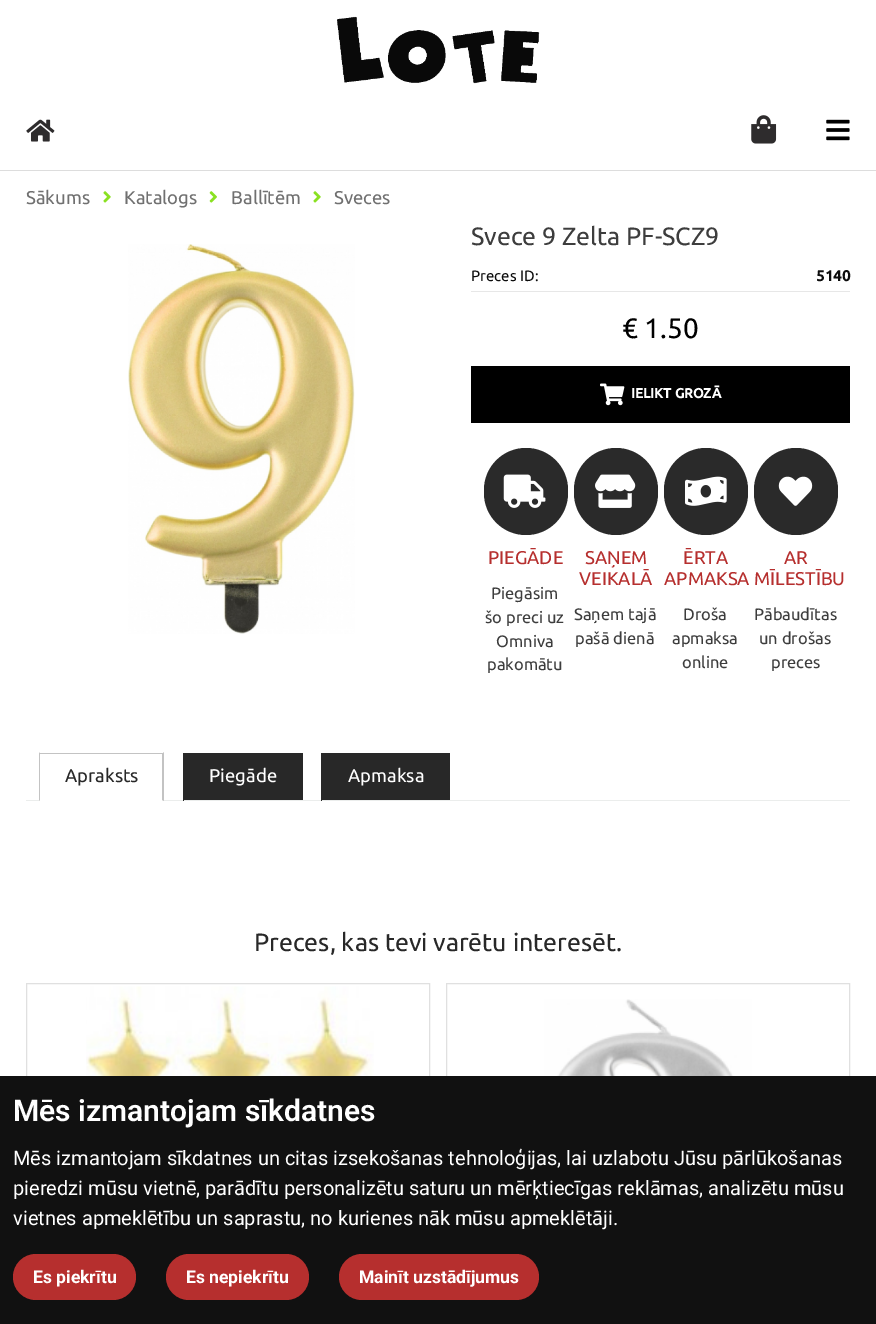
%!PS
<< /PageSize [876 1324] >> setpagedevice
/rgb { 3 { 255 div 3 1 roll } repeat setrgbcolor } def
/font { [ exch dup neg 0 0 3 -1 roll 0 0 ] selectfont } def
/text { moveto show } def
/roundrect { 5 dict begin { /r /h /w /y /x } { exch def } forall
  x r add y moveto x w add y 2 copy h add r arct x w add y h add x 1 index r arct
  x y h add x y r arct x y 2 copy exch w add exch r arct closepath end } def
/picture { 5 dict begin { /h /w /y /x /name } { exch def } forall
  gsave x y translate w h scale
  w h 8 [w 0 0 h 0 0] name (r) file false 3 colorimage grestore end } def
0 1324 translate 1 -1 scale
4 setmiterlimit
255 255 255 rgb
0 0 876 1324 rectfill
221 221 221 rgb
0 170 876 1 rectfill
(img_01.rgb) 337 16 203 68 picture
(img_02.rgb) 26 119 29 23 picture
(img_03.rgb) 751 115 26 29 picture
(img_04.rgb) 826 119 24 22 picture
(img_05.rgb) 103 191 8 12 picture
(img_06.rgb) 209 191 8 12 picture
(img_05.rgb) 313 191 8 12 picture
(img_07.rgb) 128 244 227 390 picture
231 231 231 rgb
471 291 379 1 rectfill
0 0 0 rgb
471 366 379 57 rectfill
(img_08.rgb) 600 383 25 23 picture
42 42 42 rgb
484 448 84 87 42 roundrect fill
(img_09.rgb) 503 474 43 34 picture
574 448 84 87 42 roundrect fill
(img_10.rgb) 595 474 41 34 picture
664 448 84 87 42 roundrect fill
(img_11.rgb) 685 476 42 30 picture
754 448 84 87 42 roundrect fill
(img_12.rgb) 778 476 35 30 picture
235 237 236 rgb
26 800 824 1 rectfill
255 255 255 rgb
39 800 125 1 rectfill
195 195 195 rgb
39 753 125 1 rectfill
164 752 moveto 0 49 rlineto -2 -1 rlineto 0 -46 rlineto closepath fill
39 801 moveto 0 -49 rlineto 1 2 rlineto 0 46 rlineto closepath fill
40 40 40 rgb
184 753 119 47 rectfill
183 753 1 48 rectfill
322 753 128 47 rectfill
321 753 1 48 rectfill
224 224 224 rgb
26.5 983.5 403 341 rectstroke
(img_13.rgb) 86 986 288 90 picture
446.5 983.5 403 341 rectstroke
(img_14.rgb) 544 999 208 77 picture
17 17 17 rgb
0 1076 876 248 rectfill
182 47 46 rgb
13 1254 123 46 23 roundrect fill
166 1254 143 46 23 roundrect fill
339 1254 200 46 23 roundrect fill
/Ubuntu-Regular 18.5 font
112 112 112 rgb
(Sākums) 26 204 text
(Katalogs) 124 204 text
(Ballītēm) 231 204 text
(Sveces) 334 204 text
/Ubuntu-Regular 25 font
61 61 61 rgb
(Svece 9 Zelta PF-SCZ9) 471 245 text
/Ubuntu-Regular 15 font
13 13 13 rgb
(Preces ID:) 471 281 text
/Ubuntu-Bold 15 font
(5140) 816 281 text
/Ubuntu-Regular 28 font
0 0 0 rgb
(€ 1.50) 622 338 text
/Ubuntu-Bold 13.75 font
255 255 255 rgb
(IELIKT GROZĀ) 631 398 text
/Ubuntu-Regular 18.5 font
182 47 46 rgb
(PIEGĀDE) 488 564 text
/Ubuntu-Regular 16.5 font
61 61 61 rgb
(Piegāsim) 491 599 text
(šo preci uz) 485 623 text
(Omniva) 496 647 text
(pakomātu) 487 670 text
/Ubuntu-Regular 18.5 font
182 47 46 rgb
(SAŅEM) 585 564 text
(VEIKALĀ) 579 585 text
/Ubuntu-Regular 16.5 font
61 61 61 rgb
(Saņem tajā) 574 620 text
(pašā dienā) 575 644 text
/Ubuntu-Regular 18.5 font
182 47 46 rgb
(ĒRTA) 683 564 text
(APMAKSA) 664 585 text
/Ubuntu-Regular 16.5 font
61 61 61 rgb
(Droša) 683 620 text
(apmaksa) 672 644 text
(online) 682 668 text
/Ubuntu-Regular 18.5 font
182 47 46 rgb
(AR) 784 564 text
(MĪLESTĪBU) 754 585 text
/Ubuntu-Regular 16.5 font
61 61 61 rgb
(Pābaudītas) 754 620 text
(un drošas) 759 644 text
(preces) 771 668 text
/Ubuntu-Regular 18.5 font
40 40 40 rgb
(Apraksts) 65 782 text
255 255 255 rgb
(Piegāde) 209 782 text
(Apmaksa) 348 782 text
/Ubuntu-Regular 25 font
40 40 40 rgb
(Preces, kas tevi varētu interesēt.) 254 951 text
/Roboto-SemiBold 30 font
255 255 255 rgb
(Mēs izmantojam sīkdatnes) 13 1121 text
/Roboto-Regular 20 font
(Mēs izmantojam sīkdatnes un citas izsekošanas tehnoloģijas, lai uzlabotu Jūsu pārlūkošanas) 13 1165 text
(pieredzi mūsu vietnē, parādītu personalizētu saturu un mērķtiecīgas reklāmas, analizētu mūsu) 13 1195 text
(vietnes apmeklētību un saprastu, no kurienes nāk mūsu apmeklētāji.) 13 1225 text
/Roboto-Bold 17.5 font
(Es piekrītu) 33 1283 text
(Es nepiekrītu) 186 1283 text
(Mainīt uzstādījumus) 359 1283 text
showpage
